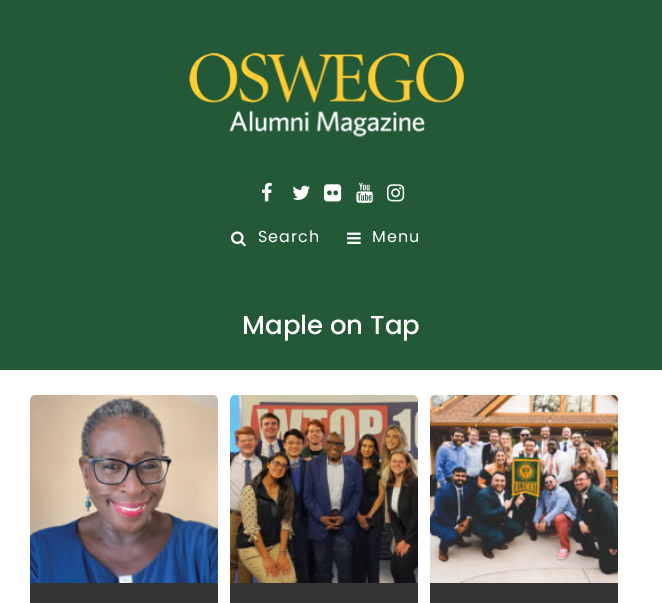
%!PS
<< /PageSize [662 603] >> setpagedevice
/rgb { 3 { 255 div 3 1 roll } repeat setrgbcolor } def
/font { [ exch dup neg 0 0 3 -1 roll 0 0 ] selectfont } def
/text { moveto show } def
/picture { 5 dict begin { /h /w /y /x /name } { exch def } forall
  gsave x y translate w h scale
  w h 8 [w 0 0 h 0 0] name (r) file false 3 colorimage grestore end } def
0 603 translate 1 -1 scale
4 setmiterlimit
255 255 255 rgb
0 0 662 603 rectfill
35 89 55 rgb
0 0 662 370 rectfill
(img_01.rgb) 189 52 275 85 picture
(img_02.rgb) 262 182 10 20 picture
(img_03.rgb) 292 185 18 15 picture
(img_04.rgb) 324 184 18 18 picture
(img_05.rgb) 356 182 17 21 picture
(img_06.rgb) 387 184 18 18 picture
(img_07.rgb) 231 231 15 16 picture
(img_08.rgb) 347 232 14 12 picture
(img_09.rgb) 30 395 188 188 picture
51 51 51 rgb
30 583 188 20 rectfill
(img_10.rgb) 230 395 188 188 picture
230 583 188 20 rectfill
(img_11.rgb) 430 395 188 188 picture
430 583 188 20 rectfill
/Poppins-Regular 16 font
255 255 255 rgb
258 242 moveto 1 0 (Search) ashow
372 242 moveto 1 0 (Menu) ashow
/Poppins-Medium 26 font
(Maple on Tap) 242 334 text
showpage
